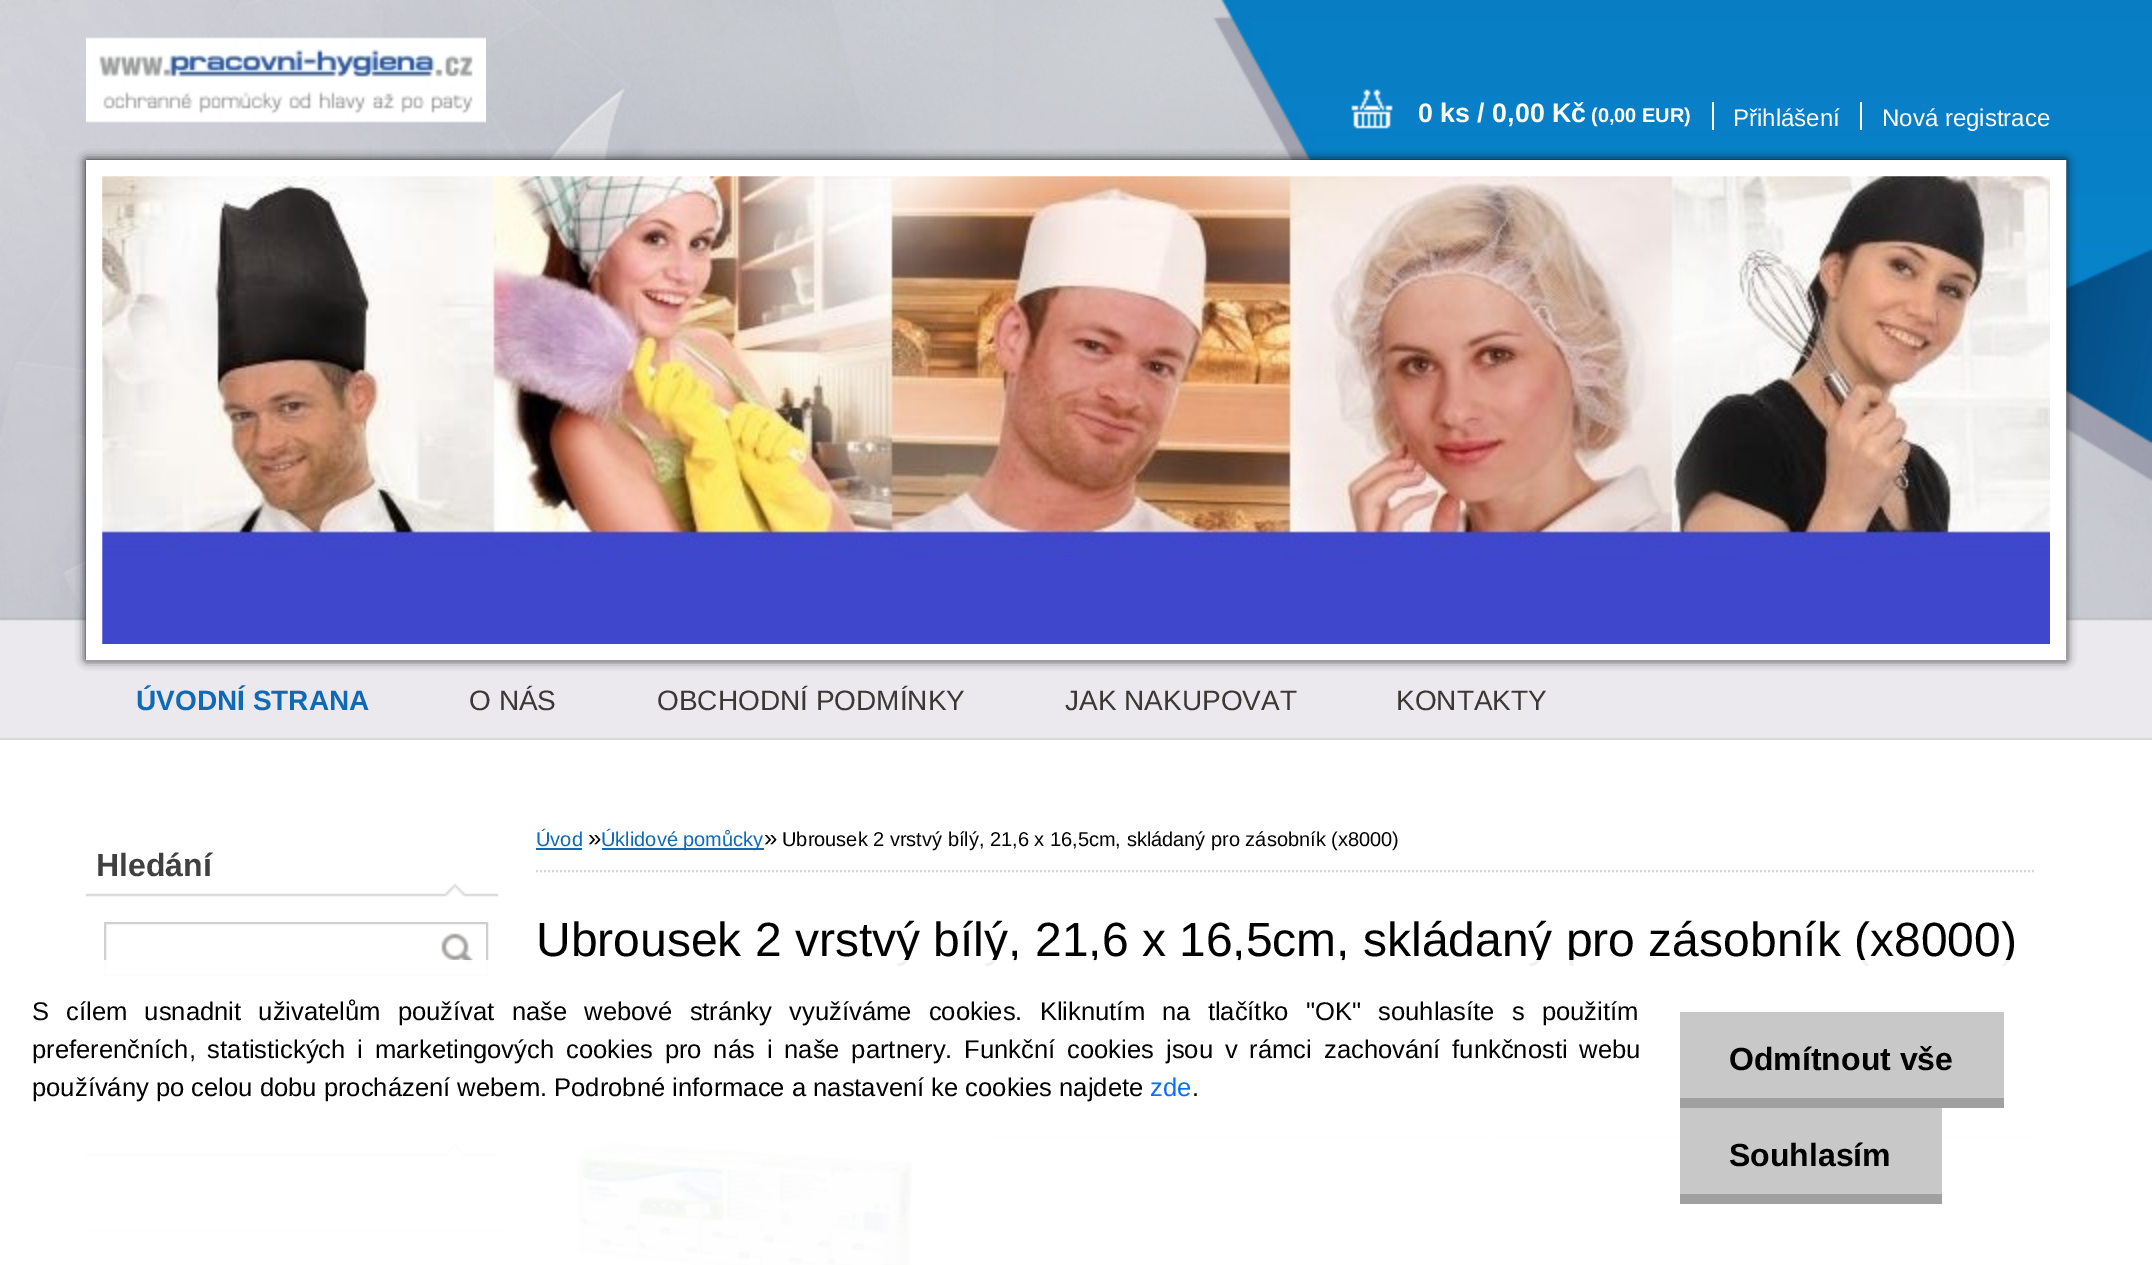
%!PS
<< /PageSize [2152 1265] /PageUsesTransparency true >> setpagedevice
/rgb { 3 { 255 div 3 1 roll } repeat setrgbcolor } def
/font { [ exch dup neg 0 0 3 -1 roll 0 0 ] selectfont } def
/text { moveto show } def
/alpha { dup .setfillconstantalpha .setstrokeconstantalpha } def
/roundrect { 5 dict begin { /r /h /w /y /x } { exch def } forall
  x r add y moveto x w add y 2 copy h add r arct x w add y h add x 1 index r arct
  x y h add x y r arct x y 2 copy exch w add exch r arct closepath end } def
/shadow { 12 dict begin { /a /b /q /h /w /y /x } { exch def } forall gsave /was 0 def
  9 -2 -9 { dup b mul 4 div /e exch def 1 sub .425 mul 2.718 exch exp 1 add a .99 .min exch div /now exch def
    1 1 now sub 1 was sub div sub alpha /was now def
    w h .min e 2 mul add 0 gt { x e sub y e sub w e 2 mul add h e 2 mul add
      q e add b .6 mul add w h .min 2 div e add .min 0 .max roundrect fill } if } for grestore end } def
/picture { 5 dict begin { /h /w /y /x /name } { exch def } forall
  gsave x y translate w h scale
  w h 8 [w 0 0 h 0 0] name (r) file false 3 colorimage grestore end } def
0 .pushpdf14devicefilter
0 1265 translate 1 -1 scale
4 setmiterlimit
255 255 255 rgb
0 0 2152 1265 rectfill
(img_01.rgb) 0 0 2152 740 picture
(img_02.rgb) 2075 395 1 4 picture
13 13 12 rgb
86 160 1980 500 0 5 1 shadow
(img_03.rgb) 102 176 1948 468 picture
255 255 255 rgb
16 setlinewidth
94 168 1964 484 rectstroke
(img_04.rgb) 86 37 400 86 picture
(img_05.rgb) 1351 89 42 40 picture
1712 102 2 28 rectfill
1860 102 2 28 rectfill
(img_06.rgb) 86 883 412 14 picture
208 208 208 rgb
2 setlinewidth
105 923 382 52 rectstroke
(img_07.rgb) 441 933 33 33 picture
(img_06.rgb) 86 1143 412 14 picture
229 229 230 rgb
86 1230 420 2 rectfill
211 213 218 rgb
[2 2] 0 setdash
536 871 moveto 1500 0 rlineto stroke
16 105 180 rgb
536 848 46 2 rectfill
602 848 162 2 rectfill
(img_08.rgb) 575 1141 339 124 picture
245 244 245 rgb
990 1136 500 2 rectfill
1494 1136 538 2 rectfill
990 1202 500 2 rectfill
1494 1202 538 2 rectfill
/LiberationSans-Bold 26.75 font
255 255 255 rgb
(0 ks / 0,00 Kč) 1418 122 text
/LiberationSans-Bold 20 font
(\(0,00 EUR\)) 1591 122 text
/LiberationSans-Regular 24 font
(Přihlášení) 1733 126 text
(Nová registrace) 1882 126 text
/LiberationSans-Bold 28 font
16 105 180 rgb
(ÚVODNÍ STRANA) 136 710 text
/LiberationSans-Regular 28 font
58 55 52 rgb
(O NÁS) 469 710 text
(OBCHODNÍ PODMÍNKY) 657 710 text
(JAK NAKUPOVAT) 1065 710 text
(KONTAKTY) 1396 710 text
/LiberationSans-Bold 32 font
64 64 64 rgb
(Hledání) 96 876 text
/LiberationSans-Regular 20 font
16 105 180 rgb
(Úvod) 536 846 text
/LiberationSans-Regular 24 font
0 0 0 rgb
(») 588 846 text
/LiberationSans-Regular 20 font
16 105 180 rgb
(Úklidové pomůcky) 601 846 text
/LiberationSans-Regular 24 font
0 0 0 rgb
(») 764 846 text
/LiberationSans-Regular 20 font
(Ubrousek 2 vrstvý bílý, 21,6 x 16,5cm, skládaný pro zásobník \(x8000\)) 782 846 text
/LiberationSans-Regular 48 font
(Ubrousek 2 vrstvý bílý, 21,6 x 16,5cm, skládaný pro zásobník \(x8000\)) 536 956 text
0.95 alpha
255 255 255 rgb
86 960 1946 305 rectfill
/LiberationSans-Regular 25.6 font
1 alpha
0 0 0 rgb
32 1020 moveto 10 0 32 (S cílem usnadnit uživatelům používat naše webové stránky využíváme cookies. Kliknutím na tlačítko "OK" souhlasíte s použitím) widthshow
32 1058 moveto 4.75 0 32 (preferenčních, statistických i marketingových cookies pro nás i naše partnery. Funkční cookies jsou v rámci zachování funkčnosti webu) widthshow
(používány po celou dobu procházení webem. Podrobné informace a nastavení ke cookies najdete) 32 1096 text
13 110 253 rgb
(zde) 1150 1096 text
0 0 0 rgb
(.) 1192 1096 text
200 200 200 rgb
1680 1012 324 86 rectfill
160 160 160 rgb
1680 1098 324 10 rectfill
/LiberationSans-Bold 32 font
0 0 0 rgb
(Odmítnout vše) 1729 1070 text
200 200 200 rgb
1680 1108 262 86 rectfill
160 160 160 rgb
1680 1194 262 10 rectfill
0 0 0 rgb
(Souhlasím) 1729 1166 text
.poppdf14devicefilter showpage
